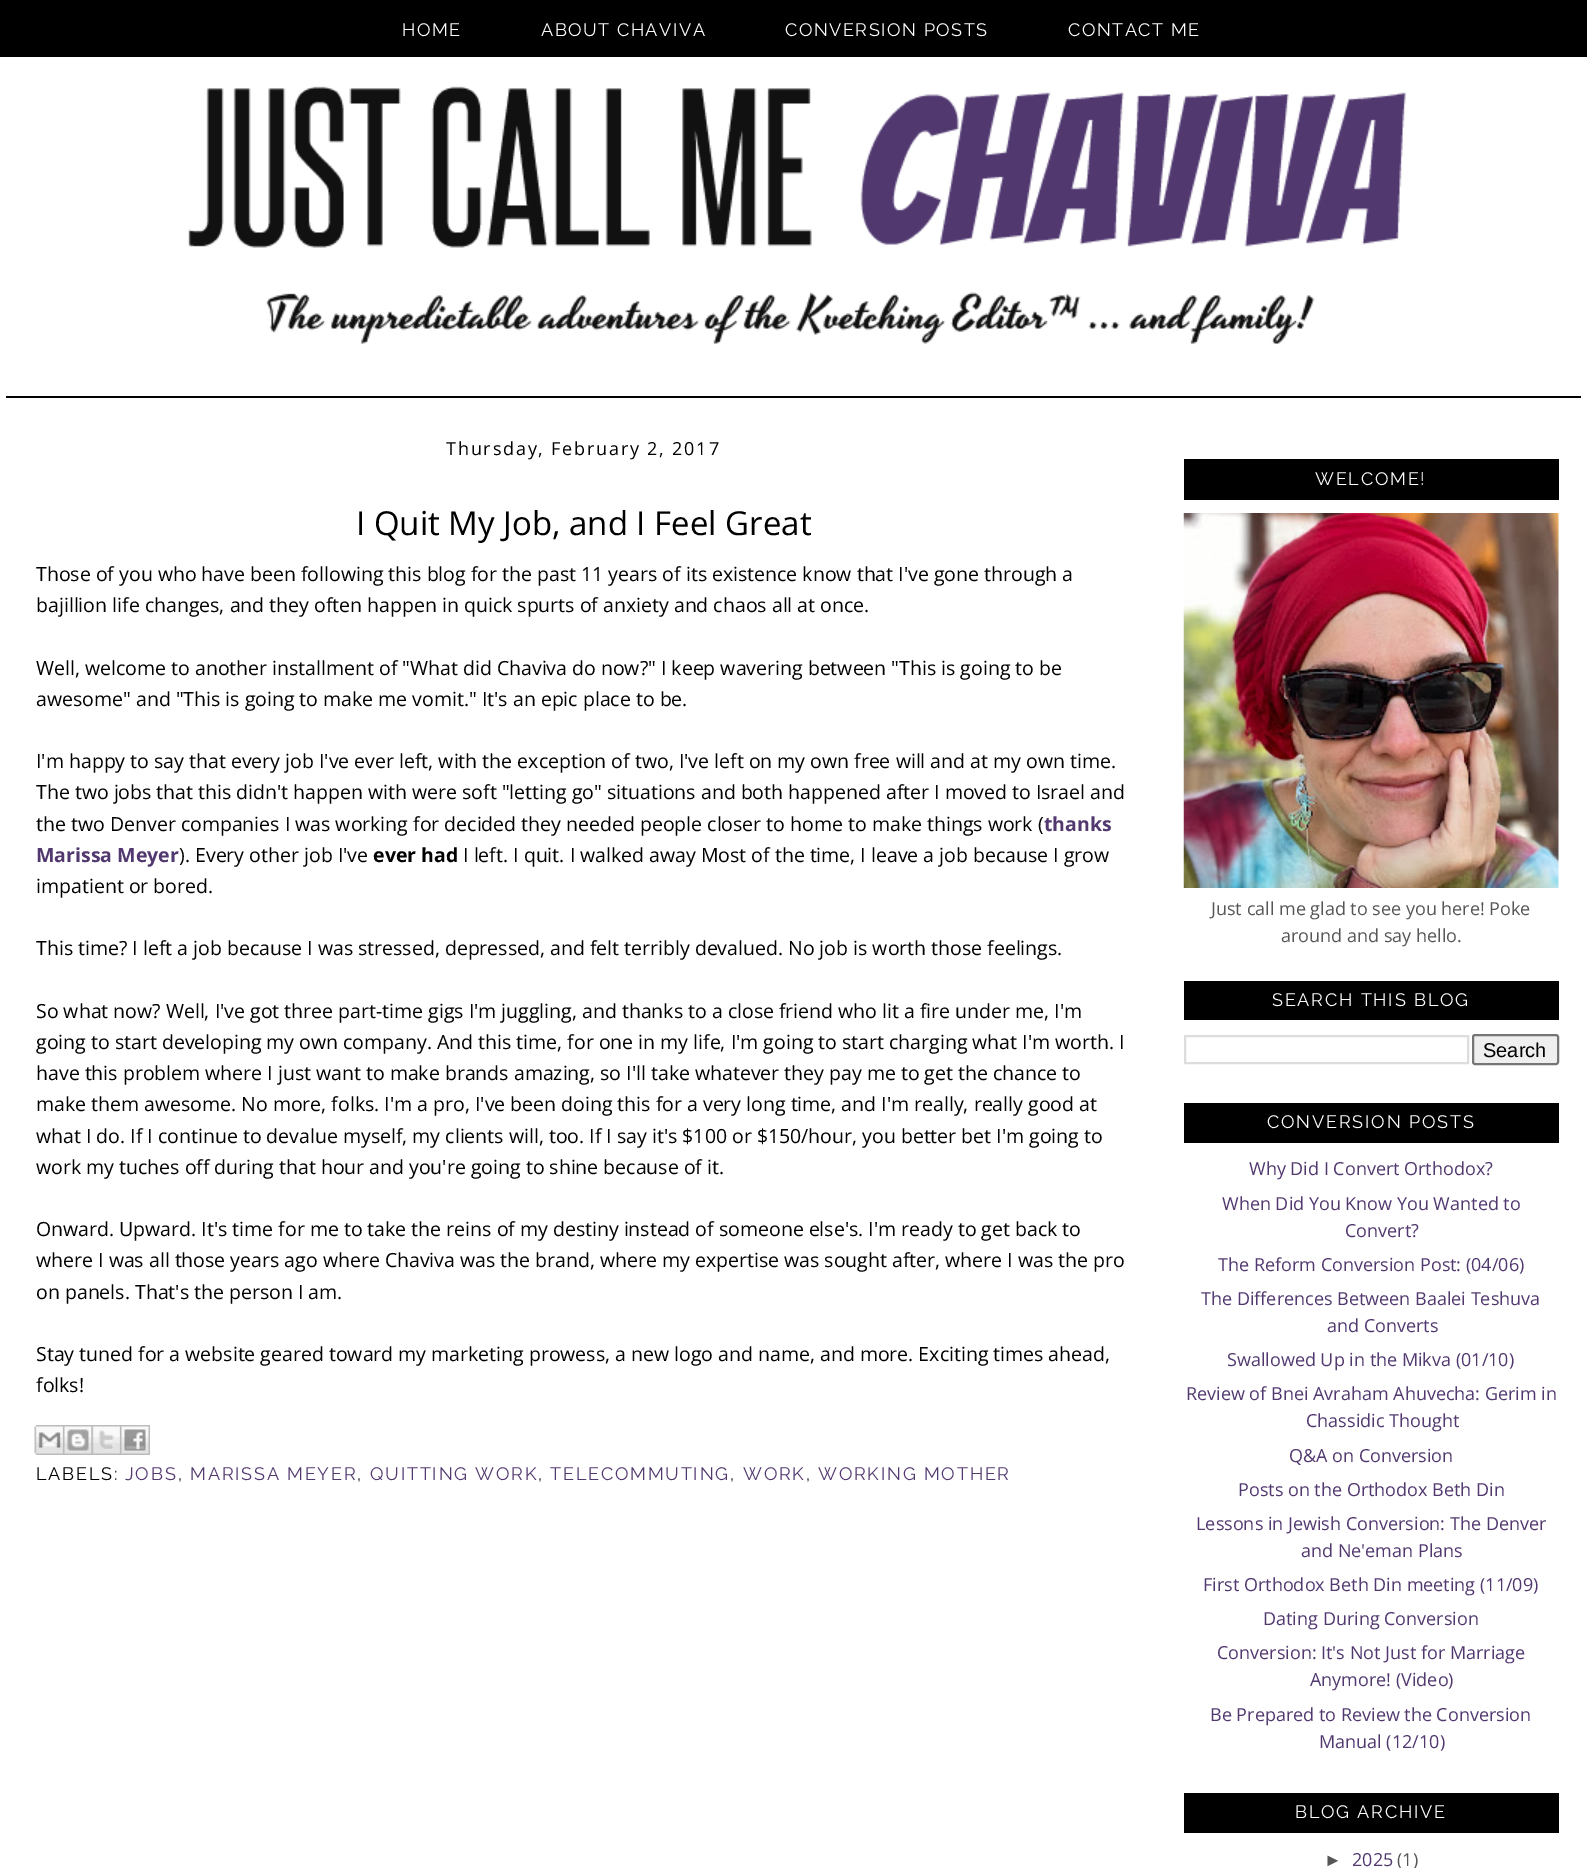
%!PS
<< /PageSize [1587 1868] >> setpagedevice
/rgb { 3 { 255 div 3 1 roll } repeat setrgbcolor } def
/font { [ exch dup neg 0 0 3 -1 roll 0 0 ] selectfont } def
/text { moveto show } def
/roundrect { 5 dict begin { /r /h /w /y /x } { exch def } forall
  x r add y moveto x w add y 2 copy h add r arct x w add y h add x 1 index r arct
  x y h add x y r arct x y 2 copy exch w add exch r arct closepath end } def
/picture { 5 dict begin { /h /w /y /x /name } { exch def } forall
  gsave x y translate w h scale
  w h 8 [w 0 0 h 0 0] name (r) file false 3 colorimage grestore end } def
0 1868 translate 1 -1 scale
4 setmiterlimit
255 255 255 rgb
0 0 1587 1868 rectfill
0 0 0 rgb
0 0 1587 57 rectfill
6 396 1575 2 rectfill
(img_01.rgb) 188 86 1218 258 picture
(img_02.rgb) 34 1425 29 30 picture
(img_03.rgb) 63 1425 29 30 picture
(img_04.rgb) 91 1425 29 30 picture
(img_05.rgb) 120 1425 30 30 picture
1184 459 375 41 rectfill
(img_06.rgb) 1183 513 376 375 picture
1184 981 375 39 rectfill
221 221 221 rgb
2 setlinewidth
1185 1036 283 27 rectstroke
239 239 239 rgb
1473 1035 85 29 2 roundrect gsave fill grestore
118 118 118 rgb
stroke
0 0 0 rgb
1184 1103 375 40 rectfill
1184 1793 375 40 rectfill
/Raleway-Regular 18 font
255 255 255 rgb
402 36 moveto 1.5 0 (HOME) ashow
541 36 moveto 1.5 0 (ABOUT CHAVIVA) ashow
785 36 moveto 1.5 0 (CONVERSION POSTS) ashow
1068 36 moveto 1.5 0 (CONTACT ME) ashow
/OpenSans-Regular 18 font
0 0 0 rgb
446 455 moveto 1.8 0 (Thursday, February 2, 2017) ashow
/OpenSans-Regular 33 font
(I Quit My Job, and I Feel Great) 356 535 text
/OpenSans-Regular 19.5 font
(Those of you who have been following this blog for the past 11 years of its existence know that I've gone through a) 36 581 text
(bajillion life changes, and they often happen in quick spurts of anxiety and chaos all at once.) 36 612 text
(Well, welcome to another installment of "What did Chaviva do now?" I keep wavering between "This is going to be) 36 675 text
(awesome" and "This is going to make me vomit." It's an epic place to be.) 36 706 text
(I'm happy to say that every job I've ever left, with the exception of two, I've left on my own free will and at my own time.) 36 768 text
(The two jobs that this didn't happen with were soft "letting go" situations and both happened after I moved to Israel and) 36 799 text
(the two Denver companies I was working for decided they needed people closer to home to make things work \() 36 831 text
/OpenSans-Bold 19.5 font
81 57 112 rgb
(thanks) 1044 831 text
(Marissa Meyer) 36 862 text
/OpenSans-Regular 19.5 font
0 0 0 rgb
(\). Every other job I've) 179 862 text
/OpenSans-Bold 19.5 font
(ever had) 373 862 text
/OpenSans-Regular 19.5 font
(I left. I quit. I walked away Most of the time, I leave a job because I grow) 463 862 text
(impatient or bored.) 36 893 text
(This time? I left a job because I was stressed, depressed, and felt terribly devalued. No job is worth those feelings.) 36 955 text
(So what now? Well, I've got three part-time gigs I'm juggling, and thanks to a close friend who lit a fire under me, I'm) 36 1018 text
(going to start developing my own company. And this time, for one in my life, I'm going to start charging what I'm worth. I) 36 1049 text
(have this problem where I just want to make brands amazing, so I'll take whatever they pay me to get the chance to) 36 1080 text
(make them awesome. No more, folks. I'm a pro, I've been doing this for a very long time, and I'm really, really good at) 36 1111 text
(what I do. If I continue to devalue myself, my clients will, too. If I say it's $100 or $150/hour, you better bet I'm going to) 36 1143 text
(work my tuches off during that hour and you're going to shine because of it.) 36 1174 text
(Onward. Upward. It's time for me to take the reins of my destiny instead of someone else's. I'm ready to get back to) 36 1236 text
(where I was all those years ago where Chaviva was the brand, where my expertise was sought after, where I was the pro) 36 1267 text
(on panels. That's the person I am.) 36 1299 text
(Stay tuned for a website geared toward my marketing prowess, a new logo and name, and more. Exciting times ahead,) 36 1361 text
(folks!) 36 1392 text
/Raleway-Regular 18 font
36 1480 moveto 1.8 0 (LABELS:) ashow
81 57 112 rgb
125 1480 moveto 1.8 0 (JOBS) ashow
0 0 0 rgb
178 1480 moveto 1.8 0 (,) ashow
81 57 112 rgb
190 1480 moveto 1.8 0 (MARISSA MEYER) ashow
0 0 0 rgb
357 1480 moveto 1.8 0 (,) ashow
81 57 112 rgb
370 1480 moveto 1.8 0 (QUITTING WORK) ashow
0 0 0 rgb
538 1480 moveto 1.8 0 (,) ashow
81 57 112 rgb
550 1480 moveto 1.8 0 (TELECOMMUTING) ashow
0 0 0 rgb
730 1480 moveto 1.8 0 (,) ashow
81 57 112 rgb
743 1480 moveto 1.8 0 (WORK) ashow
0 0 0 rgb
806 1480 moveto 1.8 0 (,) ashow
81 57 112 rgb
818 1480 moveto 1.8 0 (WORKING MOTHER) ashow
255 255 255 rgb
1315 485 moveto 1.8 0 (WELCOME!) ashow
/OpenSans-Regular 18 font
87 86 86 rgb
(Just call me glad to see you here! Poke) 1211 915 text
(around and say hello.) 1281 942 text
/Raleway-Regular 18 font
255 255 255 rgb
1272 1006 moveto 1.8 0 (SEARCH THIS BLOG) ashow
/LiberationSans-Regular 20 font
0 0 0 rgb
(Search) 1483 1057 text
/Raleway-Regular 18 font
255 255 255 rgb
1267 1128 moveto 1.8 0 (CONVERSION POSTS) ashow
/OpenSans-Regular 18 font
81 57 112 rgb
(Why Did I Convert Orthodox?) 1249 1175 text
(When Did You Know You Wanted to) 1222 1210 text
(Convert?) 1345 1237 text
(The Reform Conversion Post: \(04/06\)) 1218 1271 text
(The Differences Between Baalei Teshuva) 1201 1305 text
(and Converts) 1327 1332 text
(Swallowed Up in the Mikva \(01/10\)) 1227 1366 text
(Review of Bnei Avraham Ahuvecha: Gerim in) 1186 1400 text
(Chassidic Thought) 1306 1427 text
(Q&A on Conversion) 1289 1462 text
(Posts on the Orthodox Beth Din) 1238 1496 text
(Lessons in Jewish Conversion: The Denver) 1196 1530 text
(and Ne'eman Plans) 1301 1557 text
(First Orthodox Beth Din meeting \(11/09\)) 1203 1591 text
(Dating During Conversion) 1263 1625 text
(Conversion: It's Not Just for Marriage) 1217 1659 text
(Anymore! \(Video\)) 1310 1686 text
(Be Prepared to Review the Conversion) 1210 1721 text
(Manual \(12/10\)) 1319 1748 text
/Raleway-Regular 18 font
255 255 255 rgb
1295 1818 moveto 1.8 0 (BLOG ARCHIVE) ashow
/LiberationSans-Regular 18 font
87 86 86 rgb
(►) 1324 1866 text
/OpenSans-Regular 18 font
81 57 112 rgb
(2025) 1352 1866 text
87 86 86 rgb
(\(1\)) 1397 1866 text
showpage
